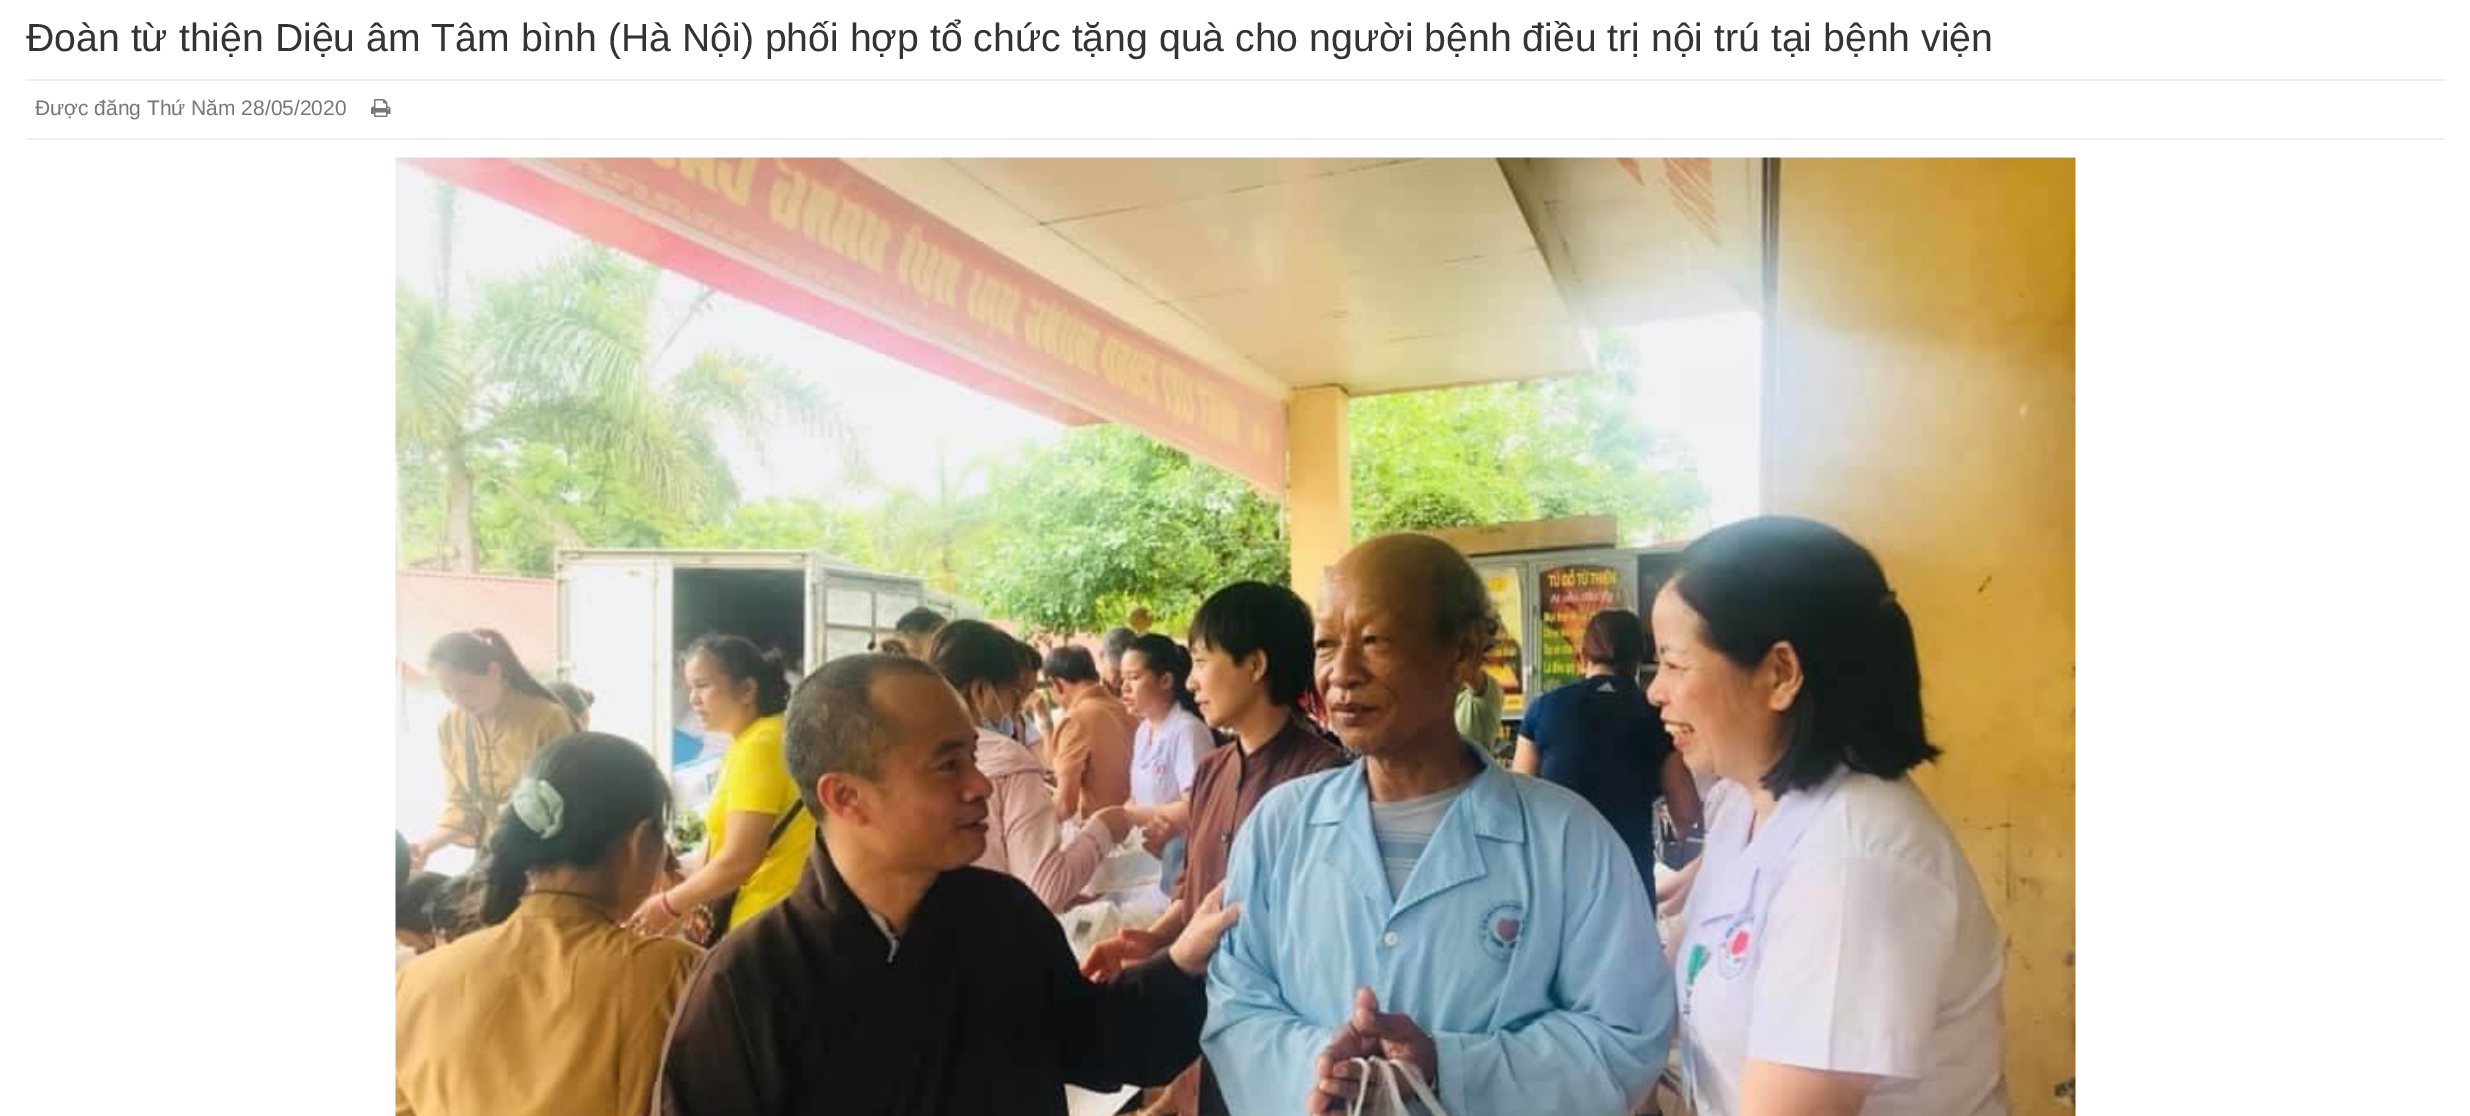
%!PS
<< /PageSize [2470 1116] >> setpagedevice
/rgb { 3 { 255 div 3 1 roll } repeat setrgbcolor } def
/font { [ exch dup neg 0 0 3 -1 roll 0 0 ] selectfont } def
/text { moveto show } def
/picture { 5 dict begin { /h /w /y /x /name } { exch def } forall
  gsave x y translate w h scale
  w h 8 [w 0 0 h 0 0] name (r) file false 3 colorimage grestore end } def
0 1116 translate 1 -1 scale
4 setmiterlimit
255 255 255 rgb
0 0 2470 1116 rectfill
238 238 238 rgb
26 79 2419 2 rectfill
(img_01.rgb) 371 99 20 18 picture
26 138 2419 2 rectfill
(img_02.rgb) 395 157 1681 959 picture
/LiberationSans-Regular 39.2 font
51 51 51 rgb
(Đoàn từ thiện Diệu âm Tâm bình \(Hà Nội\) phối hợp tổ chức tặng quà cho người bệnh điều trị nội trú tại bệnh viện) 26 51 text
/LiberationSans-Regular 21 font
119 119 119 rgb
(Được đăng Thứ Năm 28/05/2020) 35 115 text
showpage
